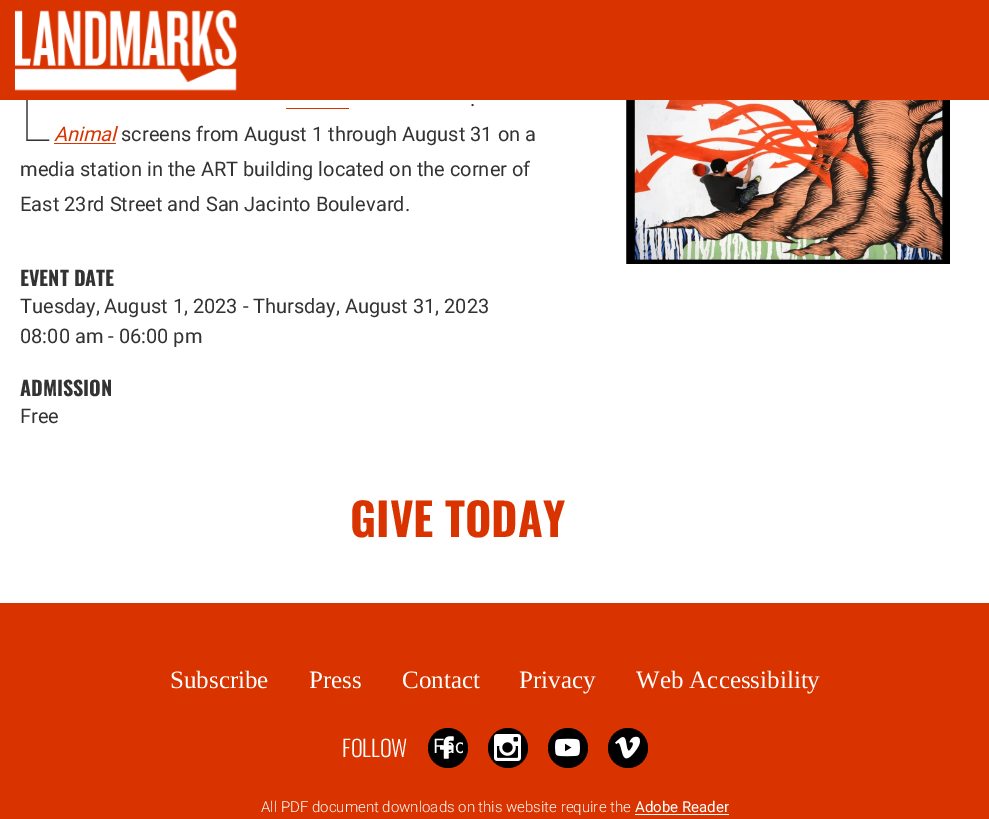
%!PS
<< /PageSize [989 819] >> setpagedevice
/rgb { 3 { 255 div 3 1 roll } repeat setrgbcolor } def
/font { [ exch dup neg 0 0 3 -1 roll 0 0 ] selectfont } def
/text { moveto show } def
/circle { newpath 0 360 arc closepath } def
/picture { 5 dict begin { /h /w /y /x /name } { exch def } forall
  gsave x y translate w h scale
  w h 8 [w 0 0 h 0 0] name (r) file false 3 colorimage grestore end } def
0 819 translate 1 -1 scale
4 setmiterlimit
255 255 255 rgb
0 0 989 819 rectfill
217 51 0 rgb
286 108 63 1 rectfill
54 143 62 1 rectfill
(img_02.rgb) 626 100 324 164 picture
0 603 989 216 rectfill
0 0 0 rgb
448 748 20 circle fill
(img_03.rgb) 440 736 14 23 picture
508 748 20 circle fill
(img_04.rgb) 494 734 27 27 picture
568 748 20 circle fill
(img_05.rgb) 555 738 25 19 picture
628 748 20 circle fill
(img_06.rgb) 615 736 25 23 picture
255 255 255 rgb
635 814 94 1 rectfill
/NotoSans-Thin 60 font
51 51 51 rgb
(L) 20 141 text
217 51 0 rgb
0 0 989 100 rectfill
(img_01.rgb) 14 10 223 81 picture
/Roboto-Regular 20 font
51 51 51 rgb
(.) 470 106 text
/Roboto-Italic 20 font
217 51 0 rgb
(Animal) 54 141 text
/Roboto-Regular 20 font
51 51 51 rgb
(screens from August 1 through August 31 on a) 121 141 text
(media station in the ART building located on the corner of) 20 176 text
(East 23rd Street and San Jacinto Boulevard.) 20 211 text
/Oswald-Bold 20 font
(EVENT DATE) 20 286 text
/Roboto-Regular 20 font
(Tuesday, August 1, 2023 - Thursday, August 31, 2023) 20 313 text
(08:00 am - 06:00 pm) 20 343 text
/Oswald-Bold 20 font
(ADMISSION) 20 396 text
/Roboto-Regular 20 font
(Free) 20 423 text
/Oswald-Bold 45 font
217 51 0 rgb
(GIVE TODAY) 350 537 text
/LiberationSerif-Regular 25 font
255 255 255 rgb
(Subscribe) 170 688 text
(Press) 309 688 text
(Contact) 402 688 text
(Privacy) 519 688 text
(Web Accessibility) 636 688 text
/Oswald-Light 22.5 font
(FOLLOW) 342 757 text
gsave
433 733 30 30 rectclip
/Roboto-Regular 20 font
(Fac) 433 753 text
grestore
/Roboto-Light 15 font
(All PDF document downloads on this website require the) 261 812 text
/Roboto-Regular 15 font
(Adobe Reader) 635 812 text
showpage
